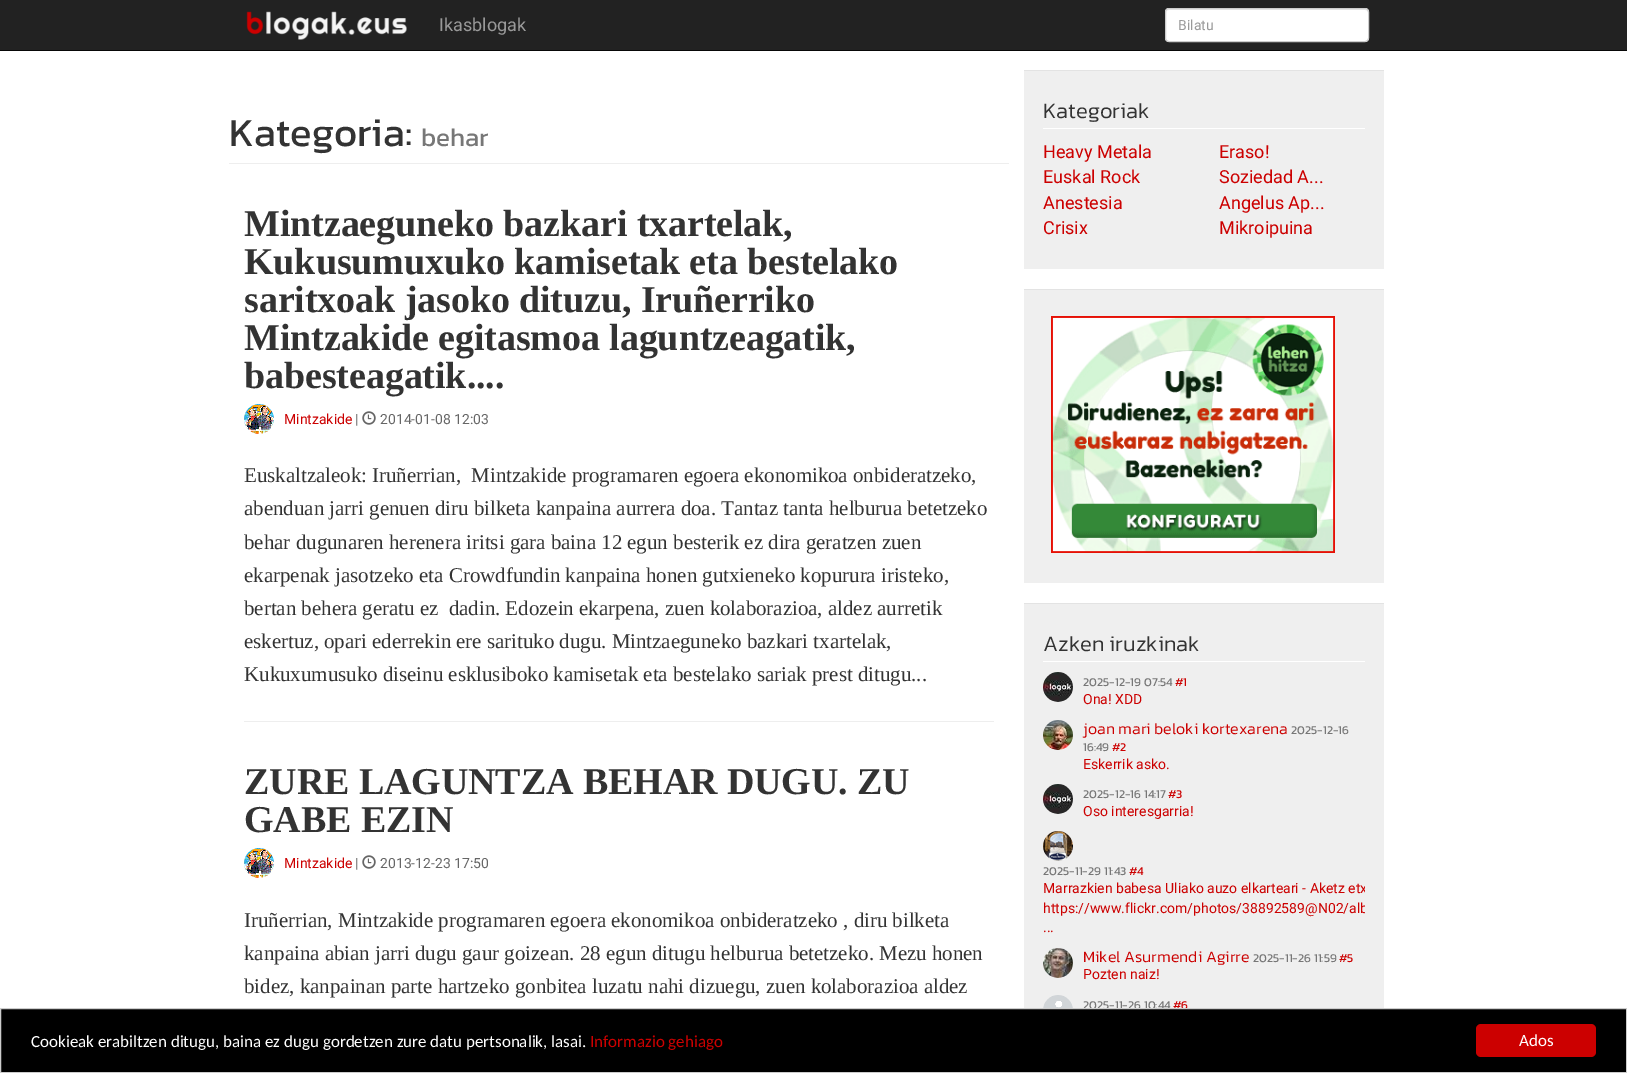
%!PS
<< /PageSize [1627 1073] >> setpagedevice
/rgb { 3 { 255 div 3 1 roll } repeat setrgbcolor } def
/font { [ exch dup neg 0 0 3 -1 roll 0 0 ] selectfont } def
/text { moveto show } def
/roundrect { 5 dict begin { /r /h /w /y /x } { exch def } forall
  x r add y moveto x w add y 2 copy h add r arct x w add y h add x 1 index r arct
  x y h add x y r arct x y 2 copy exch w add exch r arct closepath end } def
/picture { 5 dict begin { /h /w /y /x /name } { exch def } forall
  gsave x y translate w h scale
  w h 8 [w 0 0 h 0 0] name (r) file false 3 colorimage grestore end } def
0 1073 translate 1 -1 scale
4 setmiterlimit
255 255 255 rgb
0 0 1627 1073 rectfill
34 34 34 rgb
0 0 1627 50 rectfill
8 8 8 rgb
0 50 1627 1 rectfill
(img_01.rgb) 246 11 161 29 picture
255 255 255 rgb
1165 8 204 34 4 roundrect fill
236 236 236 rgb
1169 10 moveto 196 0 rlineto 2 0 3 1 3 3 rcurveto 0 -2 -1 -4 -3 -4 rcurveto -196 0 rlineto -2 0 -3 2 -3 4 rcurveto 0 -2 1 -3 3 -3 rcurveto closepath fill
204 204 204 rgb
1165.5 8.5 203 33 3.5 roundrect stroke
238 238 238 rgb
229 163 780 1 rectfill
(img_02.rgb) 244 404 30 30 picture
(img_03.rgb) 362 411 14 14 picture
244 721 750 1 rectfill
(img_02.rgb) 244 848 30 30 picture
(img_03.rgb) 362 855 14 14 picture
239 239 239 rgb
1024 71 360 198 rectfill
227 227 227 rgb
1024 70 360 1 rectfill
255 255 255 rgb
1043 128 322 1 rectfill
239 239 239 rgb
1024 290 360 293 rectfill
227 227 227 rgb
1024 289 360 1 rectfill
(img_04.rgb) 1051 316 284 237 picture
239 239 239 rgb
1024 604 360 404 rectfill
227 227 227 rgb
1024 603 360 1 rectfill
255 255 255 rgb
1043 661 322 1 rectfill
(img_05.rgb) 1043 672 30 30 picture
(img_06.rgb) 1043 720 30 30 picture
(img_05.rgb) 1043 784 30 30 picture
(img_07.rgb) 1043 831 30 30 picture
(img_08.rgb) 1043 948 30 30 picture
(img_09.rgb) 1043 995 30 13 picture
/Roboto-Regular 18 font
153 153 153 rgb
(Ikasblogak) 439 31 text
/Roboto-Regular 14 font
(Bilatu) 1178 30 text
/Kanit-Regular 40 font
51 51 51 rgb
(Kategoria:) 229 146 text
/Kanit-Regular 26 font
119 119 119 rgb
(behar) 421 146 text
/LiberationSerif-Bold 38 font
51 51 51 rgb
244 236 moveto -0.1 0 (Mintzaeguneko bazkari txartelak,) ashow
244 274 moveto -0.1 0 (Kukusumuxuko kamisetak eta bestelako) ashow
244 312 moveto -0.1 0 (saritxoak jasoko dituzu, Iruñerriko) ashow
244 350 moveto -0.1 0 (Mintzakide egitasmoa laguntzeagatik,) ashow
244 388 moveto -0.1 0 (babesteagatik....) ashow
/Roboto-Regular 14 font
204 0 0 rgb
(Mintzakide) 284 424 text
102 102 102 rgb
(|) 355 424 text
(2014-01-08 12:03) 380 424 text
/LiberationSerif-Regular 21 font
51 51 51 rgb
244 482 moveto -0.05 0 (Euskaltzaleok: Iruñerrian,  Mintzakide programaren egoera ekonomikoa onbideratzeko,) ashow
244 515 moveto -0.05 0 (abenduan jarri genuen diru bilketa kanpaina aurrera doa. Tantaz tanta helburua betetzeko) ashow
244 549 moveto -0.05 0 (behar dugunaren herenera iritsi gara baina 12 egun besterik ez dira geratzen zuen) ashow
244 582 moveto -0.05 0 (ekarpenak jasotzeko eta Crowdfundin kanpaina honen gutxieneko kopurura iristeko,) ashow
244 615 moveto -0.05 0 (bertan behera geratu ez  dadin. Edozein ekarpena, zuen kolaborazioa, aldez aurretik) ashow
244 648 moveto -0.05 0 (eskertuz, opari ederrekin ere sarituko dugu. Mintzaeguneko bazkari txartelak,) ashow
244 681 moveto -0.05 0 (Kukuxumusuko diseinu esklusiboko kamisetak eta bestelako sariak prest ditugu...) ashow
/LiberationSerif-Bold 38 font
244 794 moveto -0.1 0 (ZURE LAGUNTZA BEHAR DUGU. ZU) ashow
244 832 moveto -0.1 0 (GABE EZIN) ashow
/Roboto-Regular 14 font
204 0 0 rgb
(Mintzakide) 284 868 text
102 102 102 rgb
(|) 355 868 text
(2013-12-23 17:50) 380 868 text
/LiberationSerif-Regular 21 font
51 51 51 rgb
244 927 moveto -0.05 0 (Iruñerrian, Mintzakide programaren egoera ekonomikoa onbideratzeko , diru bilketa) ashow
244 960 moveto -0.05 0 (kanpaina abian jarri dugu gaur goizean. 28 egun ditugu helburua betetzeko. Mezu honen) ashow
244 993 moveto -0.05 0 (bidez, kanpainan parte hartzeko gonbitea luzatu nahi dizuegu, zuen kolaborazioa aldez) ashow
/Kanit-Light 22 font
(Kategoriak) 1043 118 text
/Roboto-Regular 18 font
204 0 0 rgb
(Heavy Metala) 1043 158 text
(Euskal Rock) 1043 183 text
(Anestesia) 1043 209 text
(Crisix) 1043 234 text
(Eraso!) 1219 158 text
(Soziedad A...) 1219 183 text
(Angelus Ap...) 1219 209 text
(Mikroipuina) 1219 234 text
/Kanit-Light 22 font
51 51 51 rgb
(Azken iruzkinak) 1043 651 text
/Kanit-Regular 12 font
119 119 119 rgb
(2025-12-19 07:54) 1083 686 text
204 0 0 rgb
(#1) 1175 686 text
/Roboto-Regular 14 font
(Ona! XDD) 1083 704 text
/Kanit-Light 16 font
(joan mari beloki kortexarena) 1083 734 text
/Kanit-Regular 12 font
119 119 119 rgb
(2025-12-16) 1291 734 text
(16:49) 1083 751 text
204 0 0 rgb
(#2) 1112 751 text
/Roboto-Regular 14 font
(Eskerrik asko.) 1083 769 text
/Kanit-Regular 12 font
119 119 119 rgb
(2025-12-16 14:17) 1083 798 text
204 0 0 rgb
(#3) 1168 798 text
/Roboto-Regular 14 font
(Oso interesgarria!) 1083 816 text
/Kanit-Regular 12 font
119 119 119 rgb
(2025-11-29 11:43) 1043 875 text
204 0 0 rgb
(#4) 1129 875 text
gsave
1043 861 322 87 rectclip
/Roboto-Regular 14 font
(Marrazkien babesa Uliako auzo elkarteari - Aketz etx) 1043 893 text
(https://www.flickr.com/photos/38892589@N02/alb) 1043 913 text
grestore
/Roboto-Regular 14 font
(...) 1043 932 text
/Kanit-Light 16 font
(Mikel Asurmendi Agirre) 1083 962 text
/Kanit-Regular 12 font
119 119 119 rgb
(2025-11-26 11:59) 1253 962 text
204 0 0 rgb
(#5) 1339 962 text
/Roboto-Regular 14 font
(Pozten naiz!) 1083 979 text
/Kanit-Regular 12 font
119 119 119 rgb
(2025-11-26 10:44) 1083 1009 text
204 0 0 rgb
(#6) 1173 1009 text
0 0 0 rgb
0.5 1008.5 moveto 1626 0 rlineto 0 64 rlineto -1626 0 rlineto closepath gsave fill grestore
204 204 204 rgb
stroke
/Carlito-Regular 17 font
255 255 255 rgb
(Cookieak erabiltzen ditugu, baina ez dugu gordetzen zure datu pertsonalik, lasai.) 31 1047 text
204 0 0 rgb
(Informazio gehiago) 590 1047 text
1476 1024 120 33 5 roundrect fill
255 255 255 rgb
(Ados) 1519 1046 text
showpage
